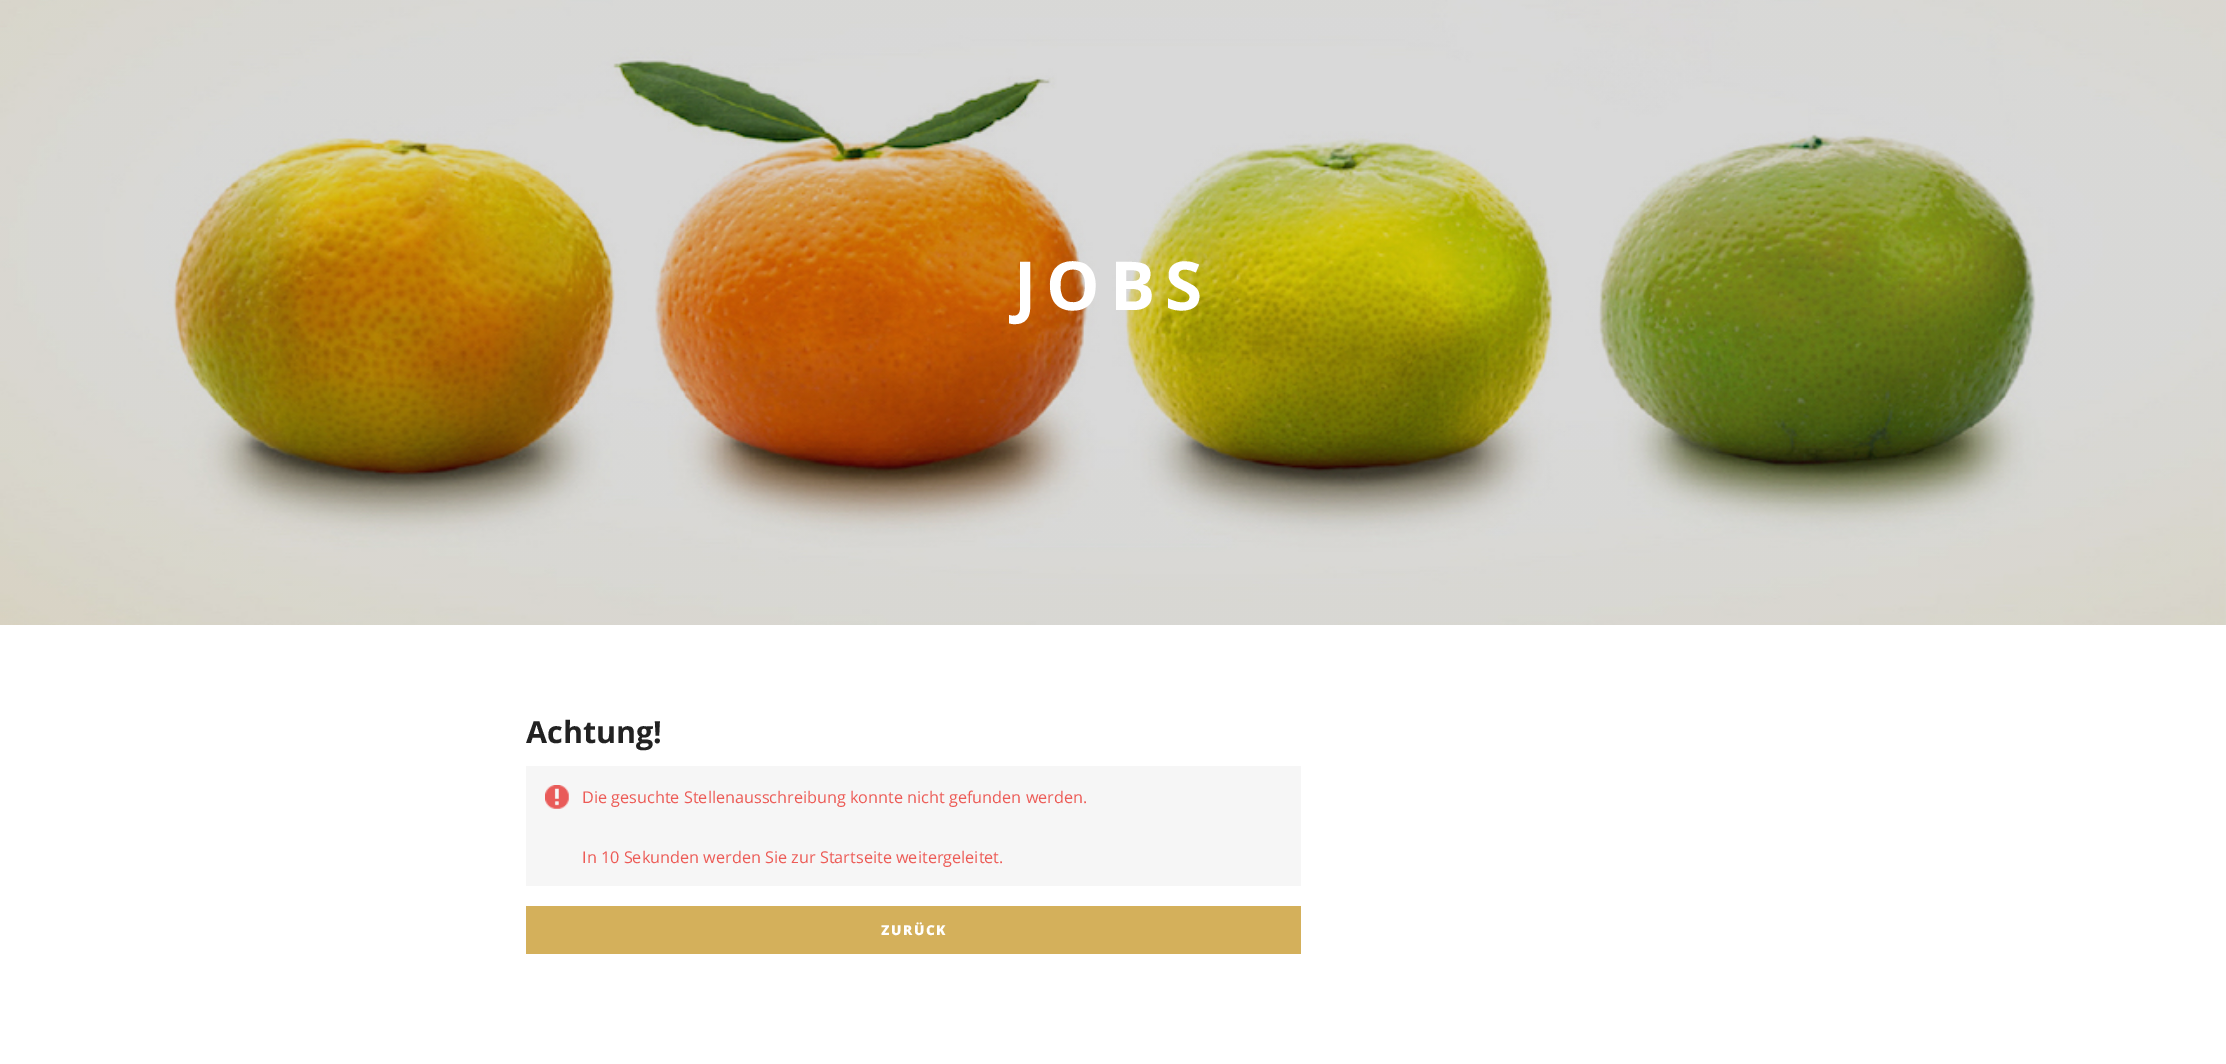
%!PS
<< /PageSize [2226 1064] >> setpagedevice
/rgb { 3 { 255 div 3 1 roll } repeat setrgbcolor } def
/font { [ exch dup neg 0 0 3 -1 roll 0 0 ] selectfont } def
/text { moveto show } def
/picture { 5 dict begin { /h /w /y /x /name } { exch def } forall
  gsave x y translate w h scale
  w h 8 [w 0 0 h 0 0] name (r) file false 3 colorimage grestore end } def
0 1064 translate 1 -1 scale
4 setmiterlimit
255 255 255 rgb
0 0 2226 1064 rectfill
(img_01.rgb) 0 0 2226 625 picture
246 246 246 rgb
526 766 775 120 rectfill
(img_02.rgb) 545 785 24 24 picture
212 176 91 rgb
526 906 775 48 rectfill
/OpenSans-Bold 67.5 font
255 255 255 rgb
1014 310 moveto 10 0 (JOBS) ashow
/OpenSans-Bold 30.5 font
34 34 34 rgb
(Achtung!) 526 743 text
/OpenSans-Regular 16.25 font
237 91 86 rgb
(Die gesuchte Stellenausschreibung konnte nicht gefunden werden.) 582 803 text
(In 10 Sekunden werden Sie zur Startseite weitergeleitet.) 582 863 text
/OpenSans-ExtraBold 13.75 font
255 255 255 rgb
881 935 moveto 1.5 0 (ZURÜCK) ashow
showpage
